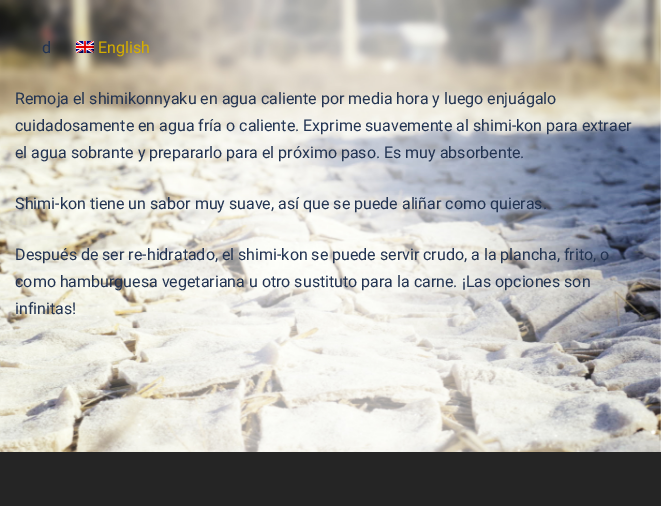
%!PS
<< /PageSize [661 506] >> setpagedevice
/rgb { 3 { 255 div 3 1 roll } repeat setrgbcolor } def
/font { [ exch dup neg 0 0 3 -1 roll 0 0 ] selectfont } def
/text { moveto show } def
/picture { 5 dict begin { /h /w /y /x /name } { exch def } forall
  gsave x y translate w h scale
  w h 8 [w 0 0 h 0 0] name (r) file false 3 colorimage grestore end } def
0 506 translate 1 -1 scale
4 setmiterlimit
255 255 255 rgb
0 0 661 506 rectfill
(img_01.rgb) 0 0 661 452 picture
(img_02.rgb) 76 41 18 12 picture
37 37 37 rgb
0 452 661 54 rectfill
/Roboto-Regular 16 font
35 52 82 rgb
(d) 42 53 text
214 174 0 rgb
(English) 98 53 text
35 52 82 rgb
(Remoja el shimikonnyaku en agua caliente por media hora y luego enjuágalo) 15 104 text
(cuidadosamente en agua fría o caliente. Exprime suavemente al shimi-kon para extraer) 15 131 text
(el agua sobrante y prepararlo para el próximo paso. Es muy absorbente.) 15 158 text
(Shimi-kon tiene un sabor muy suave, así que se puede aliñar como quieras.) 15 209 text
(Después de ser re-hidratado, el shimi-kon se puede servir crudo, a la plancha, frito, o) 15 260 text
(como hamburguesa vegetariana u otro sustituto para la carne. ¡Las opciones son) 15 287 text
(infinitas!) 15 314 text
showpage
